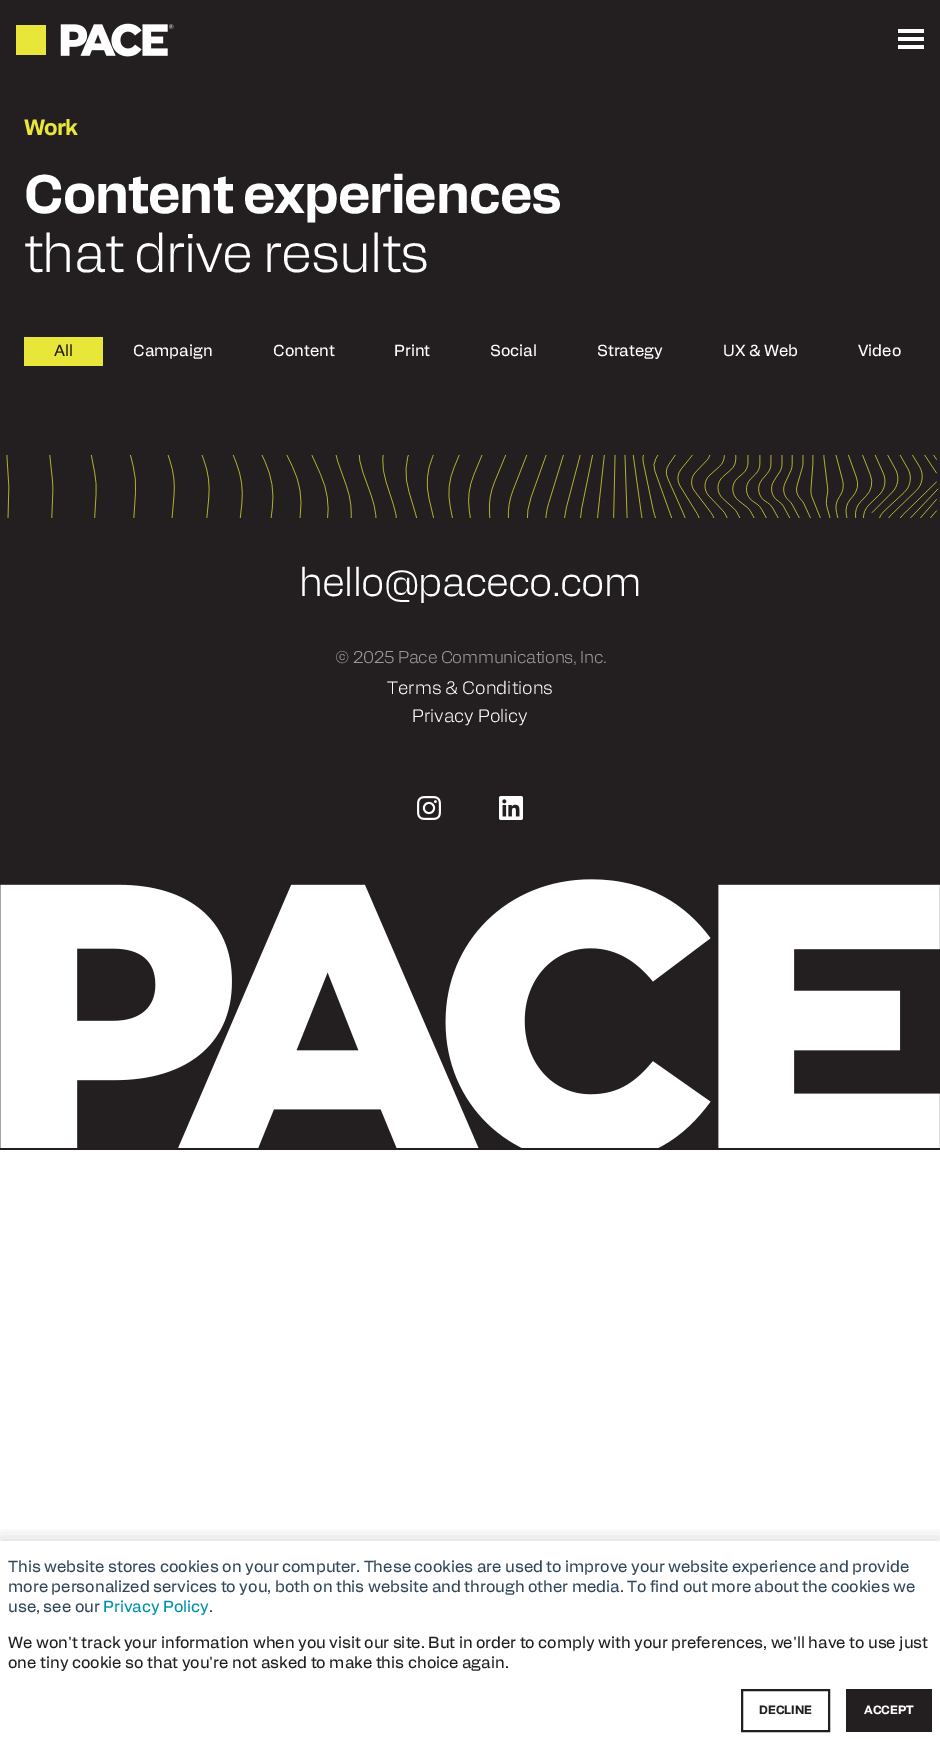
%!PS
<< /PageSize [940 1748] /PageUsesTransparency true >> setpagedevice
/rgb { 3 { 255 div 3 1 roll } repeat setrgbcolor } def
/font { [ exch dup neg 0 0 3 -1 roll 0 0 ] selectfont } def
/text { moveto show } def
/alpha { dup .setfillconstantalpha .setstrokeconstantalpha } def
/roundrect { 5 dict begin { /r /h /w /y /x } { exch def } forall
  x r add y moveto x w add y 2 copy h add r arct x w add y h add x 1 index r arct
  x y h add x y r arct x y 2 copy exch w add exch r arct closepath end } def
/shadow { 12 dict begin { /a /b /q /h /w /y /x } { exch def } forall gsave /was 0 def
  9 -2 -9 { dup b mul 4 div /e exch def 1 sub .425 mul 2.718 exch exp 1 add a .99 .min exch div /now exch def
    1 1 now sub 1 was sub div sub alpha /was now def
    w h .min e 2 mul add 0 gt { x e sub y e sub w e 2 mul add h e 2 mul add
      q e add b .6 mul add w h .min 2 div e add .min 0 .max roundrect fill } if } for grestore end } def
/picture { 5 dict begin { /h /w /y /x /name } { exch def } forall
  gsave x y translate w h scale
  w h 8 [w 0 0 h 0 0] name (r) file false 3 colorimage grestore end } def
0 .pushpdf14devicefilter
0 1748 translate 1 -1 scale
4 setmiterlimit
255 255 255 rgb
0 0 940 1748 rectfill
35 31 32 rgb
0 0 940 416 rectfill
(img_01.rgb) 16 23 158 34 picture
255 255 255 rgb
898 29 26 4 rectfill
898 37 26 4 rectfill
898 45 26 4 rectfill
231 230 57 rgb
24 337 79 29 rectfill
(img_02.rgb) 0 416 940 102 picture
35 31 32 rgb
0 518 940 632 rectfill
(img_03.rgb) 417 796 24 24 picture
(img_04.rgb) 499 796 24 24 picture
(img_05.rgb) 0 879 940 269 picture
gsave
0 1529 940 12 rectclip
0 0 0 rgb
0 1537 940 207 0 8 0.12 shadow
grestore
2 setlinewidth
742 1690 87 41 rectstroke
846 1689 86 43 rectfill
/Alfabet-Bold 22 font
231 230 57 rgb
24 135 moveto -1 0 (Work) ashow
/Alfabet-Bold 54 font
255 255 255 rgb
24 213 moveto -1 0 (Content experiences) ashow
/Alfabet-Light 54 font
24 272 moveto -1 0 (that drive results) ashow
/Alfabet-Regular 16 font
35 31 32 rgb
(All) 54 356 text
255 255 255 rgb
(Campaign) 133 356 text
(Content) 273 356 text
(Print) 394 356 text
(Social) 490 356 text
(Strategy) 597 356 text
(UX & Web) 723 356 text
(Video) 858 356 text
/Alfabet-Light 40 font
299 596 moveto -0.8 0 (hello@paceco.com) ashow
/Alfabet-Light 17 font
153 153 153 rgb
335 663 moveto -0.3 0 (© 2025 Pace Communications, Inc.) ashow
/Alfabet-Light 18 font
255 255 255 rgb
(Terms & Conditions) 387 694 text
(Privacy Policy) 412 722 text
/Alfabet-Regular 16 font
51 71 91 rgb
(This website stores cookies on your computer. These cookies are used to improve your website experience and provide) 8 1572 text
(more personalized services to you, both on this website and through other media. To find out more about the cookies we) 8 1592 text
(use, see our) 8 1612 text
0 145 174 rgb
(Privacy Policy) 103 1612 text
51 71 91 rgb
(.) 209 1612 text
35 31 32 rgb
(We won't track your information when you visit our site. But in order to comply with your preferences, we'll have to use just) 8 1648 text
(one tiny cookie so that you're not asked to make this choice again.) 8 1668 text
/Alfabet-Bold 12 font
(DECLINE) 759 1714 text
255 255 255 rgb
(ACCEPT) 864 1714 text
.poppdf14devicefilter showpage
